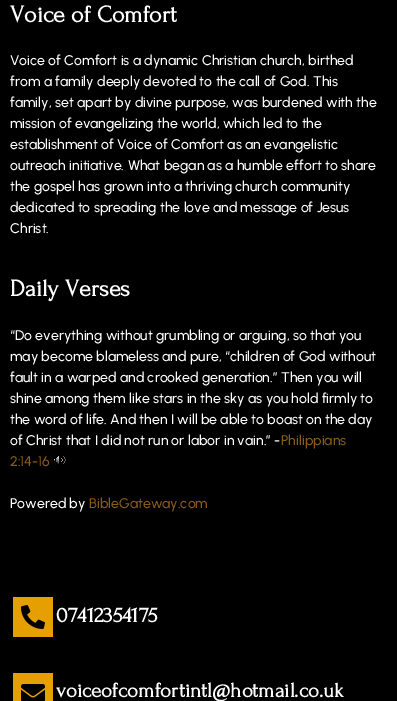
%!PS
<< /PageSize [397 701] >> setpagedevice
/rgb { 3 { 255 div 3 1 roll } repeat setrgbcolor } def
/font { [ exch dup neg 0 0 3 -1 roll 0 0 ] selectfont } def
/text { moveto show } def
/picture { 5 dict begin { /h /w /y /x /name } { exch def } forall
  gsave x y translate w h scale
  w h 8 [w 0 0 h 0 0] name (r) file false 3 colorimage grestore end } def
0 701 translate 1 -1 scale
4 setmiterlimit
0 0 0 rgb
0 0 397 701 rectfill
(img_01.rgb) 54 456 12 8 picture
229 159 1 rgb
13 597 40 40 rectfill
(img_02.rgb) 21 605 24 24 picture
13 673 40 28 rectfill
(img_03.rgb) 21 684 24 17 picture
/Forum-Bold 24 font
255 255 255 rgb
(Voice of Comfort) 10 22 text
/Urbanist-Medium 14 font
(Voice of Comfort is a dynamic Christian church, birthed) 10 65 text
(from a family deeply devoted to the call of God. This) 10 86 text
(family, set apart by divine purpose, was burdened with the) 10 107 text
(mission of evangelizing the world, which led to the) 10 128 text
(establishment of Voice of Comfort as an evangelistic) 10 149 text
(outreach initiative. What began as a humble effort to share) 10 170 text
(the gospel has grown into a thriving church community) 10 191 text
(dedicated to spreading the love and message of Jesus) 10 212 text
(Christ.) 10 233 text
/Forum-Bold 24 font
(Daily Verses) 10 296 text
/Urbanist-Medium 14 font
(“Do everything without grumbling or arguing, so that you) 10 340 text
(may become blameless and pure, “children of God without) 10 361 text
(fault in a warped and crooked generation.” Then you will) 10 382 text
(shine among them like stars in the sky as you hold firmly to) 10 403 text
(the word of life. And then I will be able to boast on the day) 10 424 text
(of Christ that I did not run or labor in vain.” -) 10 445 text
136 91 26 rgb
(Philippians) 281 445 text
(2:14-16) 10 466 text
255 255 255 rgb
(Powered by) 10 508 text
136 91 26 rgb
(BibleGateway.com) 89 508 text
/Forum-Bold 22 font
255 255 255 rgb
(07412354175) 56 622 text
/Forum-Bold 21 font
(voiceofcomfortintl@hotmail.co.uk) 56 697 text
showpage
